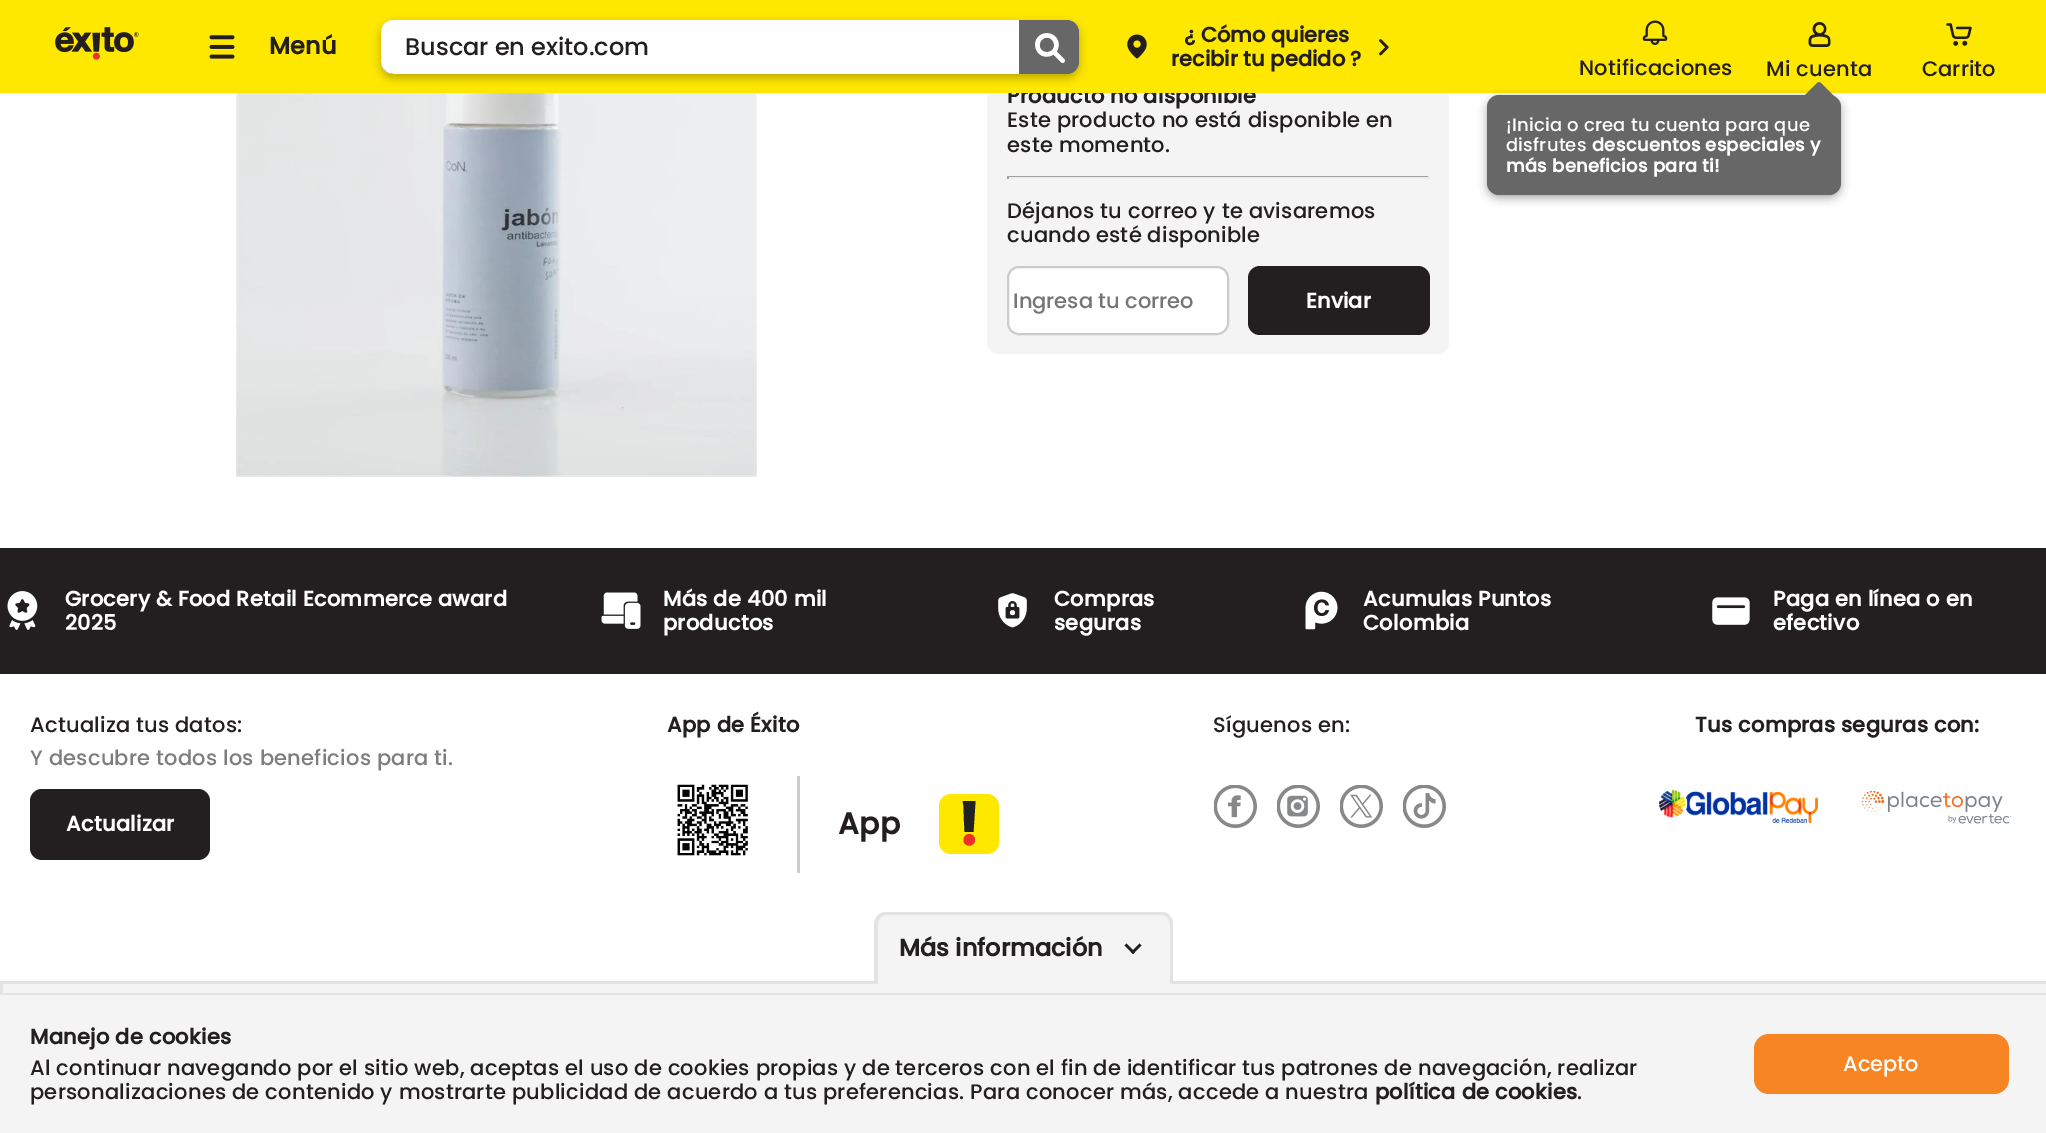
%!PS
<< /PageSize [2046 1133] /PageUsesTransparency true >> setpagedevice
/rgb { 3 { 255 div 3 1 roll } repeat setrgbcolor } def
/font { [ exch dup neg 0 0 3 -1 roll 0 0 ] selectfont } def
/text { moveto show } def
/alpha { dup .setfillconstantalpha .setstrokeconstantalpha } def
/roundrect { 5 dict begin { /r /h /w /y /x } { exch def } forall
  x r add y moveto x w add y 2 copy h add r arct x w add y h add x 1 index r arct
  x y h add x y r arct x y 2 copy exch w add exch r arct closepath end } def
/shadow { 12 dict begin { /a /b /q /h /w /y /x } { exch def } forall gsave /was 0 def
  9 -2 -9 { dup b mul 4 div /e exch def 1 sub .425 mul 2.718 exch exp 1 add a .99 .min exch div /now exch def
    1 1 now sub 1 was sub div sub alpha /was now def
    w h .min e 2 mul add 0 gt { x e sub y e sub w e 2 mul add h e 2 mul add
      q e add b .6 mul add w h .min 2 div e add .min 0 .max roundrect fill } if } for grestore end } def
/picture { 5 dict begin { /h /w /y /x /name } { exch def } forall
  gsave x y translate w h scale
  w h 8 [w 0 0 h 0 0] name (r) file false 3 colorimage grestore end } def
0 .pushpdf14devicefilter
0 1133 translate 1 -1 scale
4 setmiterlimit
255 255 255 rgb
0 0 2046 1133 rectfill
(img_09.rgb) 236 93 521 384 picture
244 244 244 rgb
987 65 462 289 12 roundrect fill
159 159 159 rgb
1007 176 423 1 rectfill
238 238 238 rgb
1428 176 2 3 rectfill
1007 177 423 2 rectfill
159 159 159 rgb
1007 176 2 3 rectfill
255 255 255 rgb
1008 267 220 67 11 roundrect gsave fill grestore
204 204 204 rgb
2 setlinewidth
stroke
35 31 32 rgb
1248 266 182 69 12 roundrect fill
0 548 2046 126 rectfill
(img_10.rgb) 7 591 31 39 picture
(img_11.rgb) 601 592 40 37 picture
(img_12.rgb) 998 593 29 35 picture
(img_13.rgb) 1305 591 33 39 picture
(img_14.rgb) 1712 597 38 28 picture
30 789 180 71 12 roundrect fill
(img_15.rgb) 677 784 71 72 picture
204 204 204 rgb
797 776 3 97 rectfill
255 232 0 rgb
939 794 60 60 12 roundrect fill
238 49 36 rgb
975 840 moveto 0 -8 -11.5 -8 -11.5 0 rcurveto 0 7.5 11.5 7.5 11.5 0 rcurveto fill
34 34 34 rgb
965 832 moveto -1 0 -0.5 -7.5 -1 -10.5 rcurveto -0.5 -15 rlineto -0.5 -5.5 -2 -5.5 2 -5.5 rcurveto 9.5 0 rlineto 0.5 0 rlineto -2 31 rlineto closepath fill
(img_16.rgb) 1214 785 43 43 picture
(img_17.rgb) 1277 785 43 43 picture
(img_18.rgb) 1340 785 43 43 picture
(img_19.rgb) 1403 785 43 43 picture
(img_20.rgb) 1659 790 159 33 picture
(img_21.rgb) 1861 791 151 33 picture
227 227 227 rgb
0 981 2046 3 rectfill
244 244 244 rgb
887 912 moveto 274 0 rlineto 6.5 0 12 5.5 12 12 rcurveto 0 60 rlineto -298 0 rlineto 0 -60 rlineto 0 -6.5 5.5 -12 12 -12 rcurveto closepath fill
227 227 227 rgb
886 912 moveto 275 0 rlineto 7 0 12 5 12 12 rcurveto 0 60 rlineto -299 0 rlineto 0 -60 rlineto 0 -7 6 -12 12 -12 rcurveto closepath 886 915 moveto 275 0 rlineto 5 0 9 4 9 9 rcurveto 0 60 rlineto -292 0 rlineto 0 -60 rlineto 0 -5 4 -9 8 -9 rcurveto closepath eofill
35 31 32 rgb
1133 954 moveto -8.5 -8.5 rlineto 2 -2 rlineto 8.5 8.5 rlineto closepath fill
1133 954 moveto -2 -2 rlineto 8.5 -8.5 rlineto 2 2 rlineto closepath fill
244 244 244 rgb
3 984 2043 9 rectfill
227 227 227 rgb
0 981 3 12 rectfill
244 244 244 rgb
0 995 2046 138 rectfill
227 227 227 rgb
0 993 2046 2 rectfill
247 133 36 rgb
1754 1034 255 60 15 roundrect fill
/Poppins-Bold 21 font
35 31 32 rgb
1007 103 moveto 0.24 0 (Producto no disponible) ashow
255 232 0 rgb
0 0 2046 93 rectfill
0 0 0 rgb
1487 98 354 100 12 4.5 0.34 shadow
103 103 103 rgb
1487 95 354 100 12 roundrect fill
/Poppins-Medium 18 font
255 255 255 rgb
1506 131 moveto 0.24 0 (¡Inicia o crea tu cuenta para que) ashow
103 103 103 rgb
1821 83 moveto 17 17 rlineto 1 1 1 3 0 4 rcurveto -17 17 rlineto -1 1 -3 1 -4 0 rcurveto -17 -17 rlineto -1 -1 -1 -3 0 -4 rcurveto 17 -17 rlineto 1 -1 3 -1 4 0 rcurveto closepath fill
/Poppins-Bold 18 font
255 255 255 rgb
1506 172 moveto 0.24 0 (más beneficios para ti!) ashow
1592 151 moveto 0.24 0 (descuentos especiales y) ashow
/Poppins-Medium 18 font
1506 151 moveto 0.24 0 (disfrutes) ashow
(img_08.rgb) 1946 23 26 23 picture
(img_07.rgb) 1808 22 23 25 picture
/Poppins-Medium 21 font
35 31 32 rgb
1766 76 moveto 0.24 0 (Mi cuenta) ashow
255 255 255 rgb
381 20 698 54 12 roundrect fill
gsave
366 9 moveto 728 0 rlineto 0 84 rlineto -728 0 rlineto closepath 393 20 moveto 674 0 rlineto 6.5 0 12 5.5 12 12 rcurveto 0 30 rlineto 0 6.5 -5.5 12 -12 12 rcurveto -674 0 rlineto -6.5 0 -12 -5.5 -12 -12 rcurveto 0 -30 rlineto 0 -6.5 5.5 -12 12 -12 rcurveto closepath eoclip newpath
0 0 0 rgb
381 24 698 54 12 4.5 0.26 shadow
grestore
103 103 103 rgb
1019 20 moveto 48 0 rlineto 6.5 0 12 5.5 12 12 rcurveto 0 30 rlineto 0 6.5 -5.5 12 -12 12 rcurveto -48 0 rlineto closepath fill
(img_03.rgb) 1035 33 30 30 picture
/Poppins-Medium 24 font
35 31 32 rgb
(Buscar en exito.com) 405 55 text
(img_06.rgb) 1642 20 26 25 picture
(img_05.rgb) 1379 39 10 17 picture
(img_04.rgb) 1127 34 20 25 picture
(img_02.rgb) 209 35 26 24 picture
/Poppins-Medium 21 font
(Carrito) 1922 76 text
1579 75 moveto 0.24 0 (Notificaciones) ashow
/Poppins-Bold 21 font
(recibir tu pedido ?) 1171 66 text
(¿ Cómo quieres) 1184 42 text
/Poppins-Bold 24 font
(Menú) 269 54 text
(img_01.rgb) 55 27 84 33 picture
/Poppins-Medium 21 font
1007 127 moveto 0.24 0 (Este producto no está disponible en) ashow
1007 152 moveto 0.24 0 (este momento.) ashow
1007 218 moveto 0.24 0 (Déjanos tu correo y te avisaremos) ashow
1007 242 moveto 0.24 0 (cuando esté disponible) ashow
117 117 117 rgb
(Ingresa tu correo) 1013 308 text
/Poppins-Bold 21 font
255 255 255 rgb
(Enviar) 1306 308 text
65 606 moveto 0.24 0 (Grocery & Food Retail Ecommerce award) ashow
65 630 moveto 0.24 0 (2025) ashow
663 606 moveto 0.24 0 (Más de 400 mil) ashow
663 630 moveto 0.24 0 (productos) ashow
1054 606 moveto 0.24 0 (Compras) ashow
1054 630 moveto 0.24 0 (seguras) ashow
1363 606 moveto 0.24 0 (Acumulas Puntos) ashow
1363 630 moveto 0.24 0 (Colombia) ashow
1773 606 moveto 0.24 0 (Paga en línea o en) ashow
1773 630 moveto 0.24 0 (efectivo) ashow
/Poppins-Medium 21 font
35 31 32 rgb
30 732 moveto 0.24 0 (Actualiza tus datos:) ashow
125 125 125 rgb
30 765 moveto 0.24 0 (Y descubre todos los beneficios para ti.) ashow
/Poppins-Bold 21 font
255 255 255 rgb
66 831 moveto 0.24 0 (Actualizar) ashow
35 31 32 rgb
667 732 moveto 0.24 0 (App de Éxito) ashow
/Poppins-Bold 30 font
838 834 moveto 0.24 0 (App) ashow
/Poppins-Medium 21 font
1213 732 moveto 0.24 0 (Síguenos en:) ashow
/Poppins-Bold 21 font
1695 732 moveto 0.24 0 (Tus compras seguras con:) ashow
/Poppins-Bold 24 font
(Más información) 899 956 text
/Poppins-Bold 21 font
30 1044 moveto 0.24 0 (Manejo de cookies) ashow
/Poppins-Medium 21 font
30 1075 moveto 0.24 0 (Al continuar navegando por el sitio web, aceptas el uso de cookies propias y de terceros con el fin de identificar tus patrones de navegación, realizar) ashow
30 1099 moveto 0.24 0 (personalizaciones de contenido y mostrarte publicidad de acuerdo a tus preferencias. Para conocer más, accede a nuestra) ashow
/Poppins-Bold 21 font
1375 1099 moveto 0.24 0 (política de cookies) ashow
/Poppins-Medium 21 font
1577 1099 moveto 0.24 0 (.) ashow
255 255 255 rgb
(Acepto) 1843 1071 text
.poppdf14devicefilter showpage
